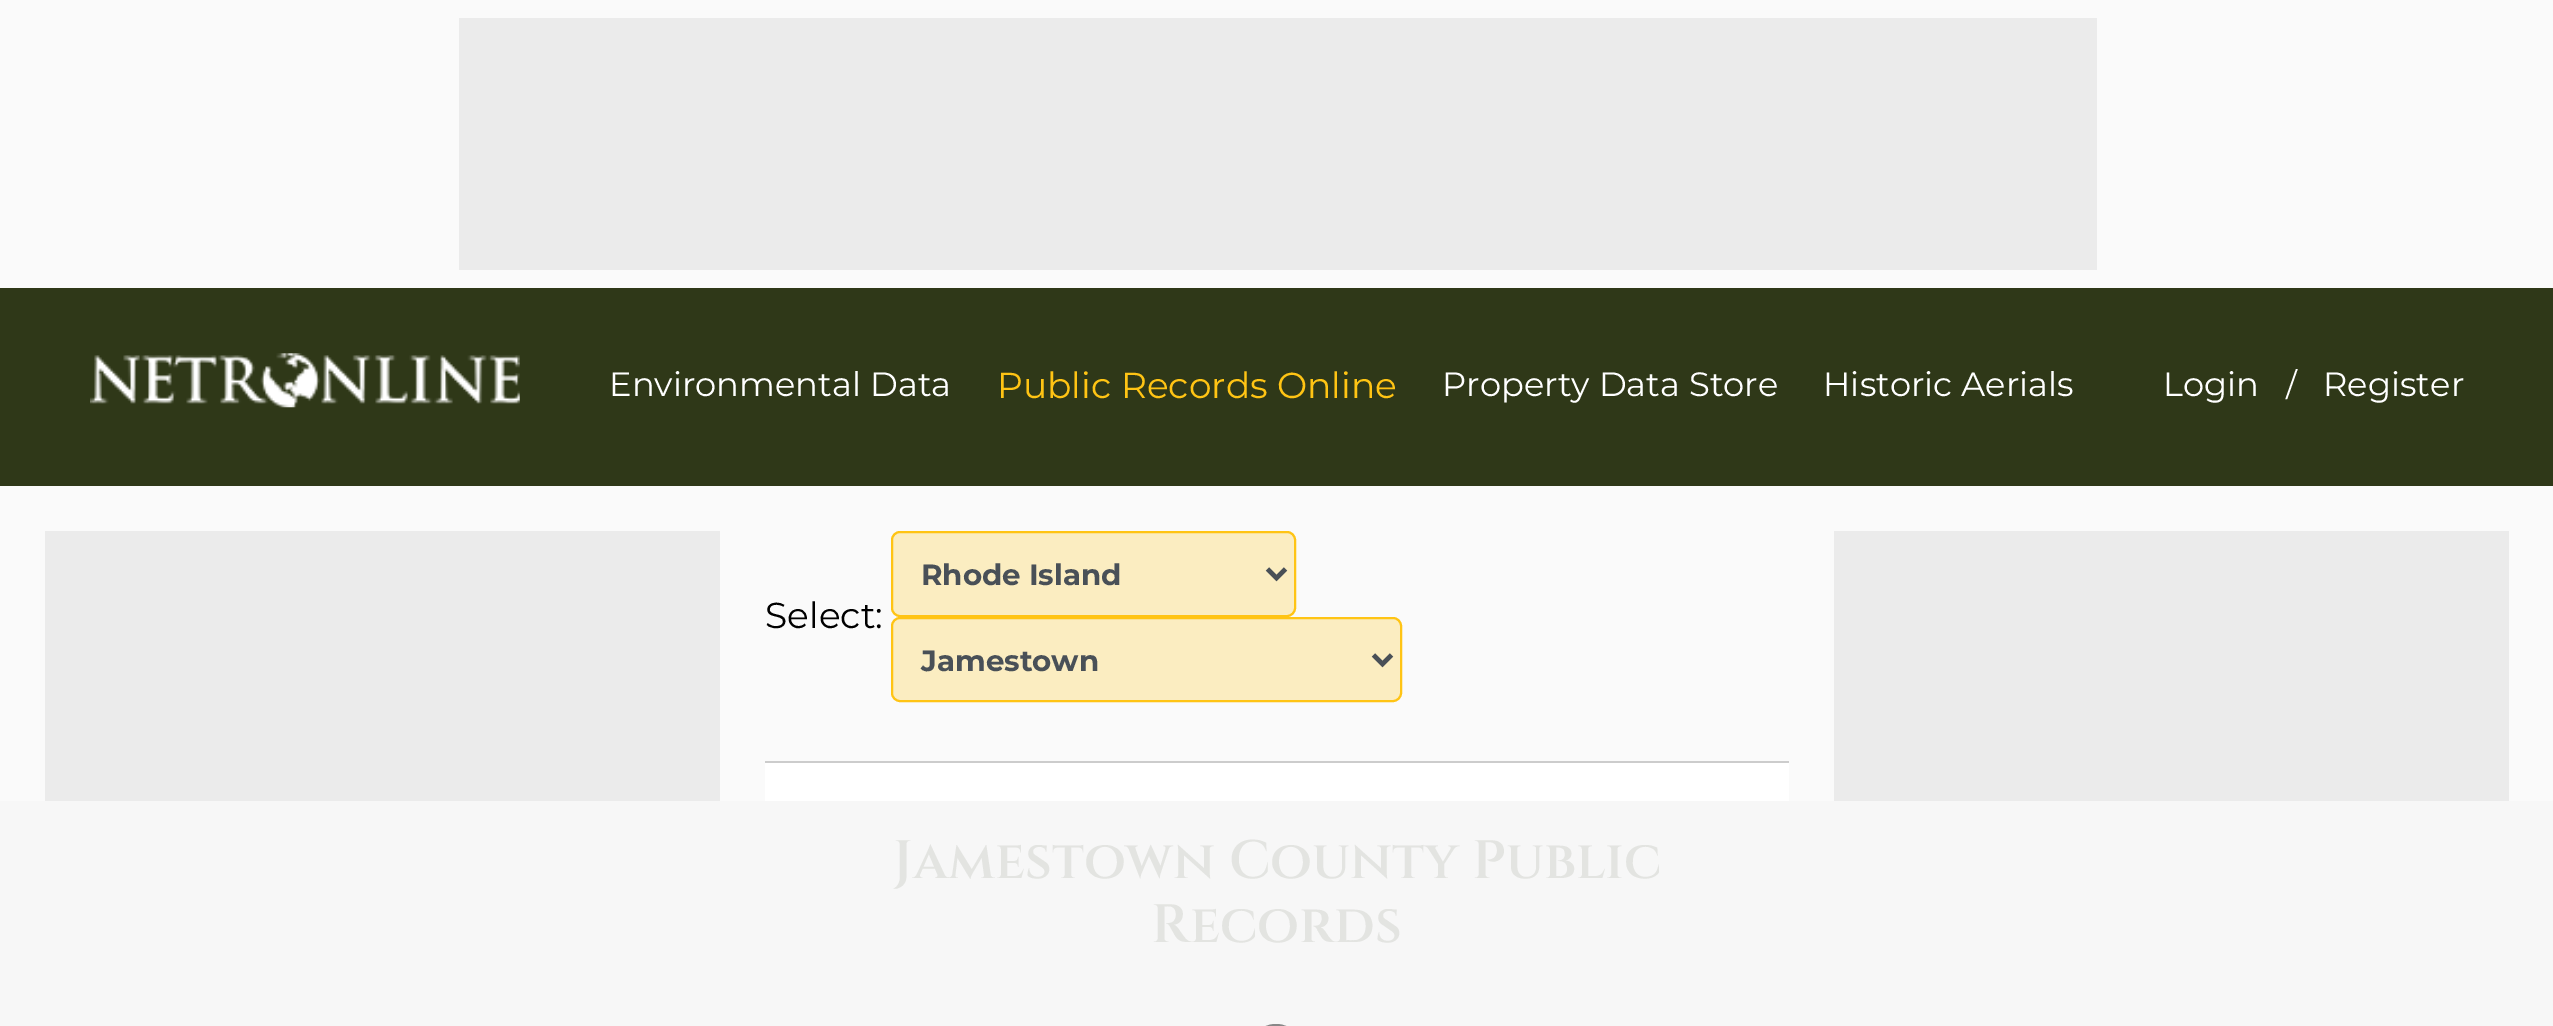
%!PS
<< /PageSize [2553 1026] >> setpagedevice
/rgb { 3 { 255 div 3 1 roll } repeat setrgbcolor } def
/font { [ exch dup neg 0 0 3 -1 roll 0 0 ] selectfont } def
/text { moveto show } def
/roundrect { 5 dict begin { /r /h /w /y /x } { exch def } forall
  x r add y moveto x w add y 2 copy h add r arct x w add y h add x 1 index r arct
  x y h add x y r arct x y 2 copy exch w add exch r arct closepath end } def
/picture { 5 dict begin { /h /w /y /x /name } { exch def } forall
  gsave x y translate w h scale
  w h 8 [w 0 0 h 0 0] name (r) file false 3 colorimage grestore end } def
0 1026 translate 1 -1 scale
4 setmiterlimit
250 250 250 rgb
0 0 2553 1026 rectfill
247 247 247 rgb
0 801 2553 225 rectfill
235 235 235 rgb
459 18 1638 252 rectfill
47 56 24 rgb
0 288 2553 198 rectfill
(img_01.rgb) 90 353 430 55 picture
235 235 235 rgb
45 531 675 270 rectfill
251 237 193 rgb
892 532 403 84 8 roundrect gsave fill grestore
255 196 20 rgb
2 setlinewidth
stroke
73 80 87 rgb
4.5 setlinewidth
1267.5 569 moveto 9 9 rlineto 9 -9 rlineto stroke
251 237 193 rgb
892 618 509 83 8 roundrect gsave fill grestore
255 196 20 rgb
2 setlinewidth
stroke
73 80 87 rgb
4.5 setlinewidth
1373.5 655 moveto 9 9 rlineto 9 -9 rlineto stroke
204 204 204 rgb
765 761 1024 2 rectfill
255 255 255 rgb
765 763 1024 38 rectfill
235 235 235 rgb
1834 531 675 270 rectfill
136 136 136 rgb
2 setlinewidth
1252 1025 48 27 23.5 roundrect stroke
/Montserrat-Regular 33.75 font
255 255 255 rgb
(Environmental Data) 609 396 text
/Montserrat-Regular 36 font
255 196 20 rgb
(Public Records Online) 997 398 text
/Montserrat-Regular 33.75 font
255 255 255 rgb
(Property Data Store) 1442 396 text
(Historic Aerials) 1823 396 text
(Login) 2163 396 text
/Montserrat-Regular 32 font
(/) 2286 396 text
/Montserrat-Regular 33.75 font
(Register) 2323 396 text
/Montserrat-Regular 36 font
0 0 0 rgb
(Select:) 765 628 text
/Montserrat-Bold 29.25 font
73 80 87 rgb
(Rhode Island) 921 585 text
(Jamestown) 921 671 text
/Cinzel-SemiBold 54 font
227 228 225 rgb
(Jamestown County Public) 893 878 text
(Records) 1151 942 text
showpage
